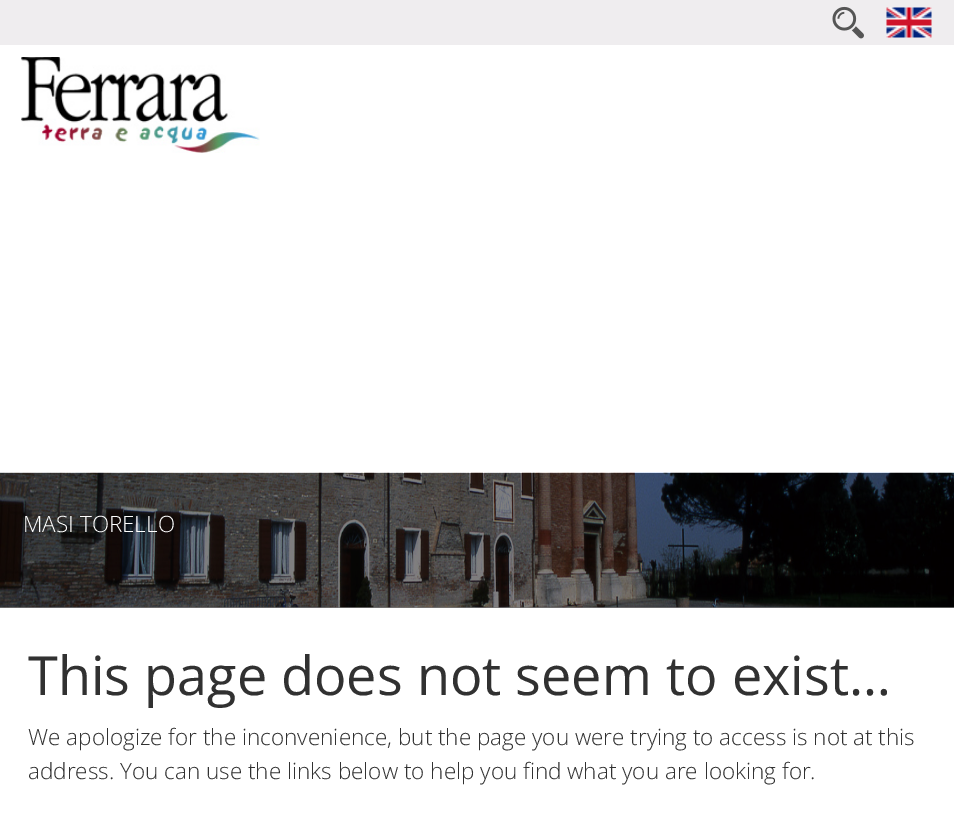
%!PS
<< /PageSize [954 819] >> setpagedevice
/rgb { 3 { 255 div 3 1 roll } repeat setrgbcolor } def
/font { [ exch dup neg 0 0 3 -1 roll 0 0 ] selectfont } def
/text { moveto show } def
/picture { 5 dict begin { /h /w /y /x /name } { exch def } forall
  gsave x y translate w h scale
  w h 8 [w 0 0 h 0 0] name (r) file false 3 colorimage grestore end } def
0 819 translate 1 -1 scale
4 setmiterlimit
255 255 255 rgb
0 0 954 819 rectfill
239 237 239 rgb
0 0 954 45 rectfill
(img_01.rgb) 886 7 46 31 picture
(img_02.rgb) 832 6 32 33 picture
(img_03.rgb) 21 57 239 96 picture
120 119 120 rgb
0 607 954 1 rectfill
(img_04.rgb) 0 472 954 136 picture
/OpenSans-Light 22.5 font
255 255 255 rgb
(MASI TORELLO) 23 532 text
/OpenSans-Regular 54 font
49 49 49 rgb
(This page does not seem to exist…) 28 695 text
/OpenSans-Light 22.5 font
(We apologize for the inconvenience, but the page you were trying to access is not at this) 28 745 text
(address. You can use the links below to help you find what you are looking for.) 28 779 text
showpage
